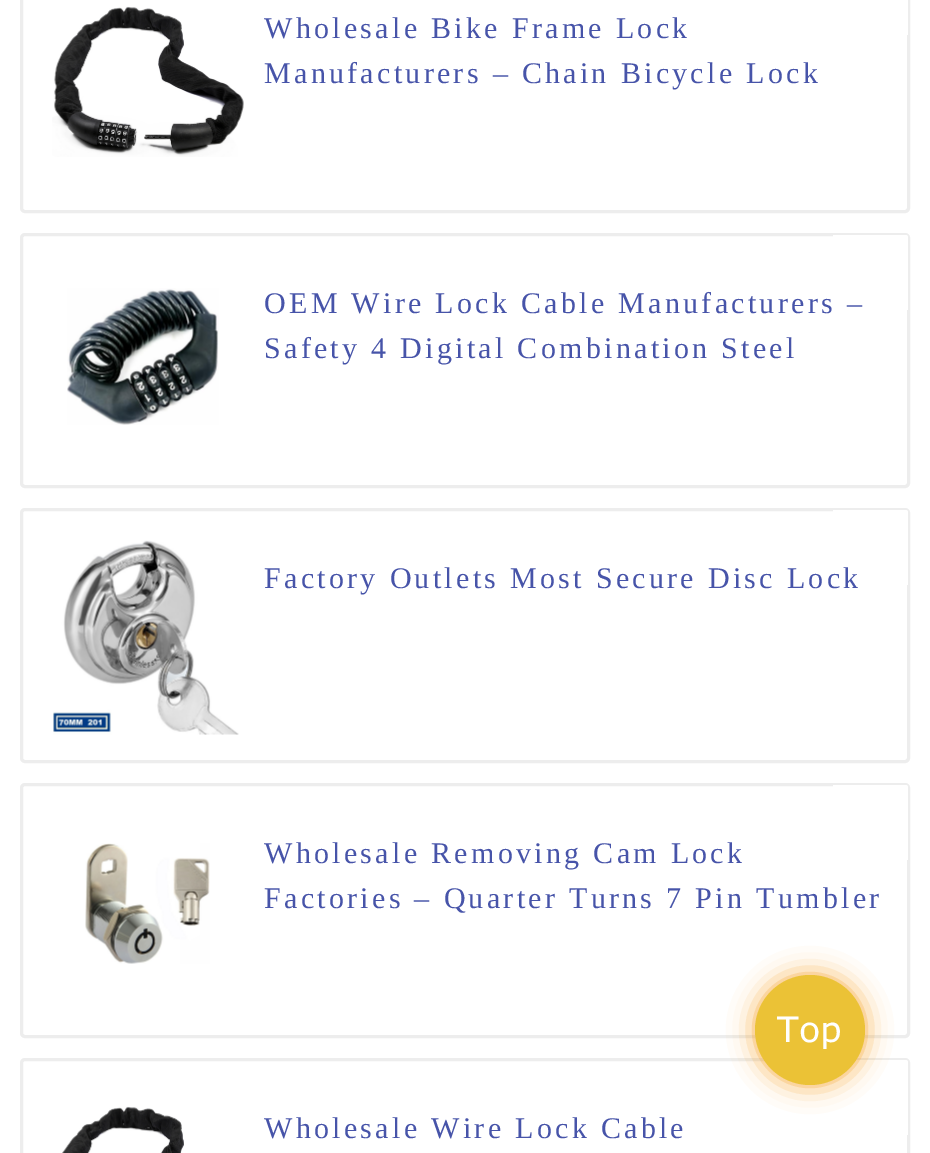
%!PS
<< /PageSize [930 1153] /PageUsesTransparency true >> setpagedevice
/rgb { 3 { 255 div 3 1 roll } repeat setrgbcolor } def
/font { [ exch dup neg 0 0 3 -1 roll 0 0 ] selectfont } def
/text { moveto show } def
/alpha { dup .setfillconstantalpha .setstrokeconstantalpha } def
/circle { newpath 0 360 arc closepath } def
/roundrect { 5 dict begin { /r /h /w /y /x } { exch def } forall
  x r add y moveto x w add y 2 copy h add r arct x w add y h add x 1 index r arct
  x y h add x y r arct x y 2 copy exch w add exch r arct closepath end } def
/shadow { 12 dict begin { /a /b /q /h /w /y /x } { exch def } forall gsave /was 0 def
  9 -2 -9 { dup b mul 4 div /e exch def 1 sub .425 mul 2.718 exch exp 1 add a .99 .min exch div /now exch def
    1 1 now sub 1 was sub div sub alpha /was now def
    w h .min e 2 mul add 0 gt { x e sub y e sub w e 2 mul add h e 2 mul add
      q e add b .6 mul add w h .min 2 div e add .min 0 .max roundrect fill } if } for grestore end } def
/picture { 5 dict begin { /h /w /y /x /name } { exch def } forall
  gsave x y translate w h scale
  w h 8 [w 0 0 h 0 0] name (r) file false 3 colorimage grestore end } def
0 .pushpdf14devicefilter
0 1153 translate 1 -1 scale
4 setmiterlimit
255 255 255 rgb
0 0 930 1153 rectfill
237 237 237 rgb
3 setlinewidth
21.5 -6.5 887 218 3.5 roundrect stroke
(img_01.rgb) 52 6 192 151 picture
255 255 255 rgb
907 0 1 35 rectfill
237 237 237 rgb
21.5 234.5 887 252 3.5 roundrect stroke
255 255 255 rgb
833 235 moveto 72.5 0 rlineto 1.5 0 2.5 1 2.5 2.5 rcurveto 0 72.5 rlineto -75 0 rlineto closepath fill
(img_02.rgb) 67 288 152 137 picture
237 237 237 rgb
21.5 509.5 887 252 3.5 roundrect stroke
(img_03.rgb) 53 540 186 195 picture
255 255 255 rgb
833 510 moveto 72.5 0 rlineto 1.5 0 2.5 1 2.5 2.5 rcurveto 0 72.5 rlineto -75 0 rlineto closepath fill
237 237 237 rgb
21.5 784.5 887 252 3.5 roundrect stroke
255 255 255 rgb
833 785 moveto 72.5 0 rlineto 1.5 0 2.5 1 2.5 2.5 rcurveto 0 72.5 rlineto -75 0 rlineto closepath fill
(img_04.rgb) 85 843 125 121 picture
237 237 237 rgb
21.5 1059.5 887 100 3.5 roundrect stroke
(img_05.rgb) 62 1106 122 47 picture
255 255 255 rgb
833 1060 moveto 72.5 0 rlineto 1.5 0 2.5 1 2.5 2.5 rcurveto 0 72.5 rlineto -75 0 rlineto closepath fill
244 151 18 rgb
755 975 110 110 55 13 0.8 shadow
235 194 54 rgb
810 1030 55 circle fill
/LiberationSerif-Regular 30 font
71 84 169 rgb
264 38 moveto 3.3 0 (Wholesale Bike Frame Lock) ashow
264 83 moveto 3.3 0 (Manufacturers – Chain Bicycle Lock) ashow
264 313 moveto 3.3 0 (OEM Wire Lock Cable Manufacturers –) ashow
264 358 moveto 3.3 0 (Safety 4 Digital Combination Steel) ashow
264 588 moveto 3.3 0 (Factory Outlets Most Secure Disc Lock) ashow
264 863 moveto 3.3 0 (Wholesale Removing Cam Lock) ashow
264 908 moveto 3.3 0 (Factories – Quarter Turns 7 Pin Tumbler) ashow
264 1138 moveto 3.3 0 (Wholesale Wire Lock Cable) ashow
/Verdana-Regular 35 font
255 255 255 rgb
(Top) 777 1042 text
.poppdf14devicefilter showpage
